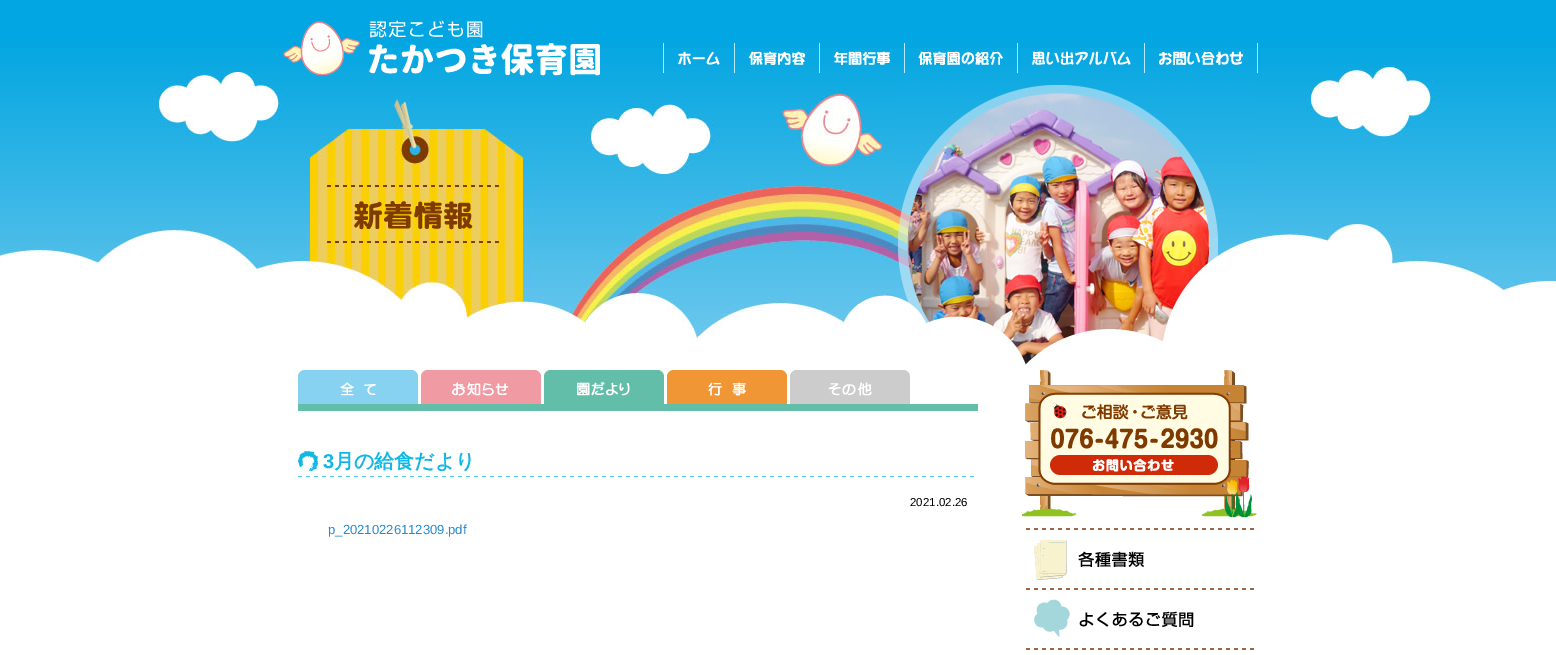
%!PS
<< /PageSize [1556 655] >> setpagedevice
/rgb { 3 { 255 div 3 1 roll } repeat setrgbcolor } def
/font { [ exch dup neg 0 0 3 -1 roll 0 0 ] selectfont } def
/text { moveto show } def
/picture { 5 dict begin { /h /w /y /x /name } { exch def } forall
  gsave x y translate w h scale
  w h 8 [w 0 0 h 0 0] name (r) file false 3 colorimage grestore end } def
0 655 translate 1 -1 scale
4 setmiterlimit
255 255 255 rgb
0 0 1556 655 rectfill
(img_01.rgb) 0 0 1556 368 picture
(img_02.rgb) 283 20 317 56 picture
182 233 252 rgb
663 43 1 30 rectfill
734 43 1 30 rectfill
(img_03.rgb) 678 51 42 14 picture
819 43 1 30 rectfill
(img_04.rgb) 749 51 56 14 picture
904 43 1 30 rectfill
(img_05.rgb) 834 51 56 14 picture
1017 43 1 30 rectfill
(img_06.rgb) 918 51 85 14 picture
1144 43 1 30 rectfill
(img_07.rgb) 1032 51 99 14 picture
1257 43 1 30 rectfill
(img_08.rgb) 1159 51 84 14 picture
(img_09.rgb) 354 201 119 29 picture
(img_10.rgb) 894 80 364 288 picture
98 190 168 rgb
298 404 680 7 rectfill
(img_11.rgb) 298 370 120 34 picture
(img_12.rgb) 421 370 120 34 picture
(img_13.rgb) 544 370 120 34 picture
(img_14.rgb) 667 370 120 34 picture
(img_15.rgb) 790 370 120 34 picture
(img_16.rgb) 298 476 676 1 picture
(img_17.rgb) 298 451 21 20 picture
(img_18.rgb) 1022 370 235 148 picture
(img_19.rgb) 1050 455 168 20 picture
(img_20.rgb) 1026 528 228 2 picture
(img_20.rgb) 1026 588 228 2 picture
(img_21.rgb) 1034 539 110 41 picture
(img_20.rgb) 1026 648 228 2 picture
(img_22.rgb) 1034 599 160 38 picture
/LiberationSans-Bold 20 font
17 184 229 rgb
(3) 323 468 text
/WenQuanYiZenHei-Bold 20 font
(月の給食だより) 334 468 text
/LiberationSans-Regular 11.5 font
0 0 0 rgb
(2021.02.26) 910 506 text
/LiberationSans-Regular 13.1 font
39 138 203 rgb
(p_20210226112309.pdf) 328 534 text
showpage
